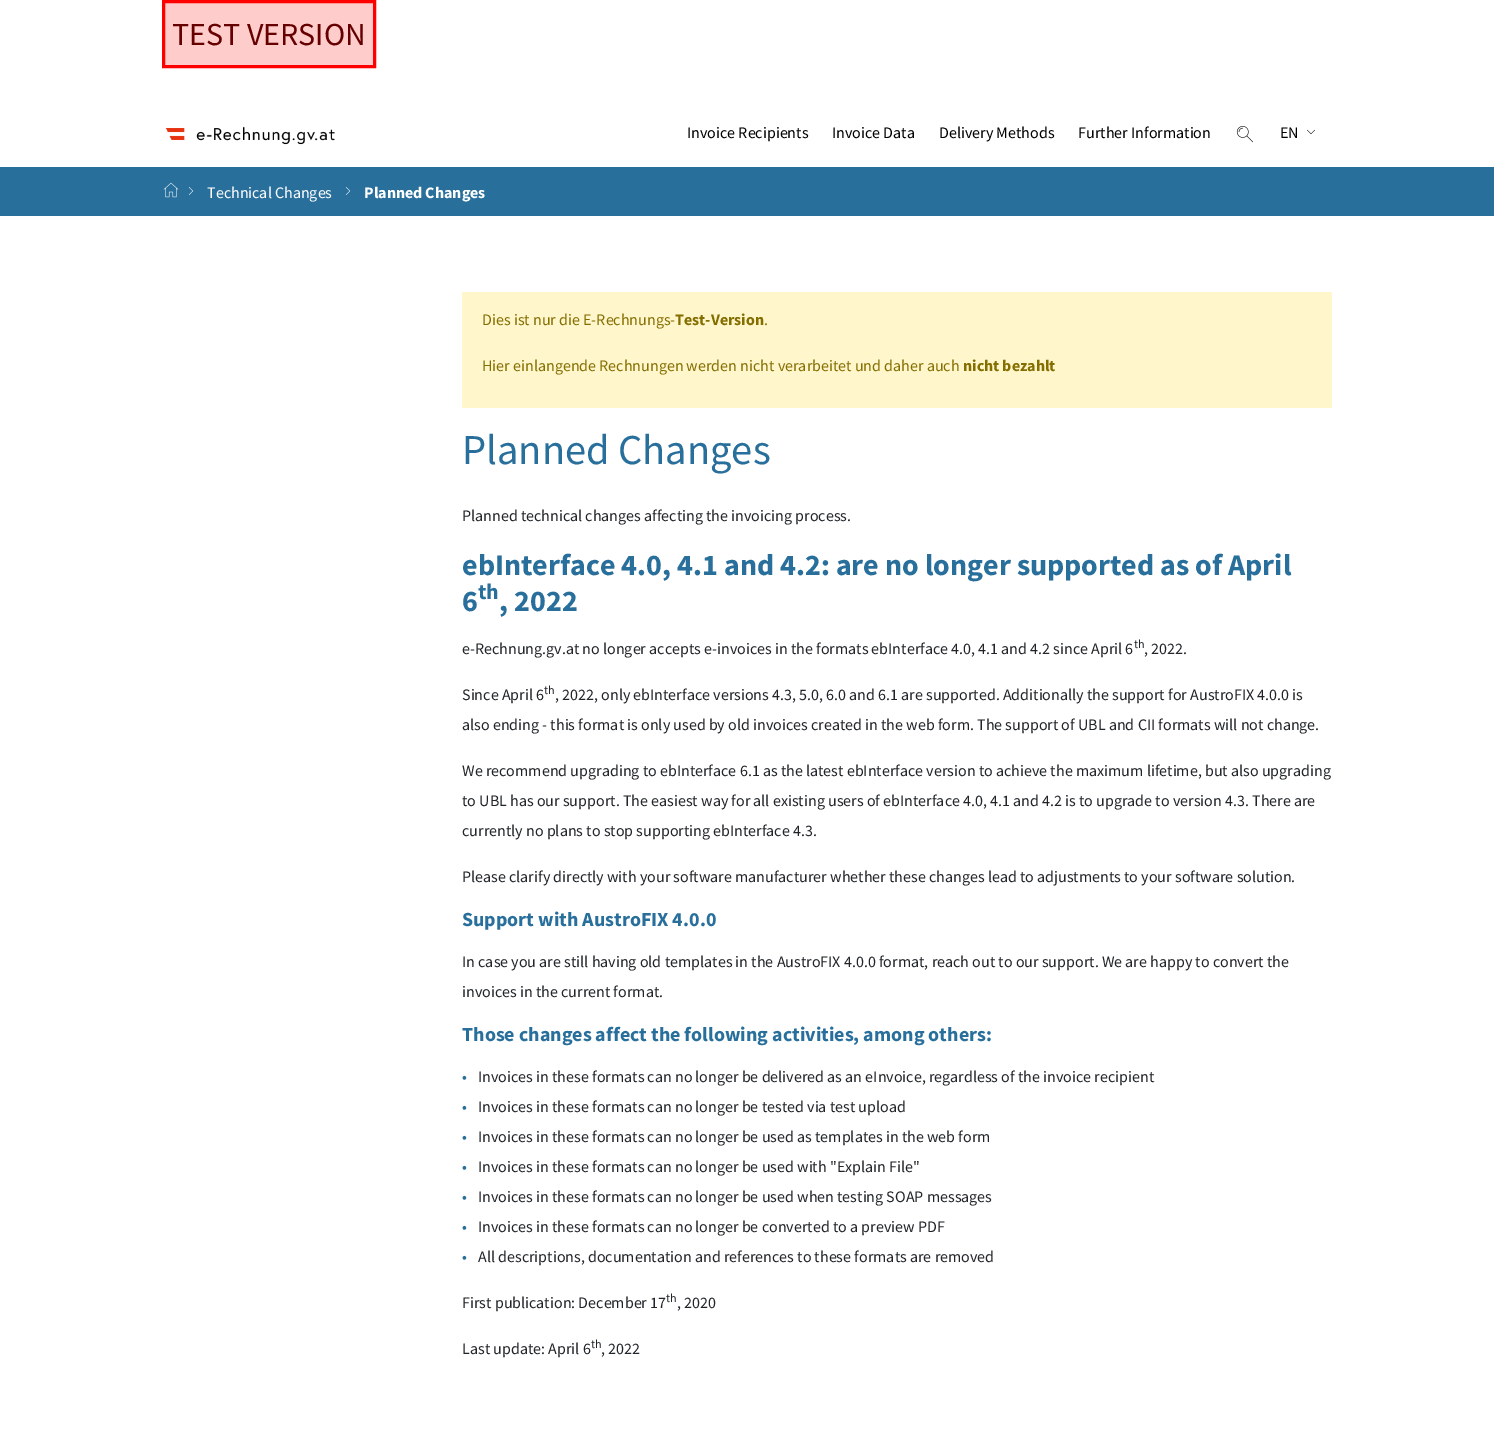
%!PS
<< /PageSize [1494 1452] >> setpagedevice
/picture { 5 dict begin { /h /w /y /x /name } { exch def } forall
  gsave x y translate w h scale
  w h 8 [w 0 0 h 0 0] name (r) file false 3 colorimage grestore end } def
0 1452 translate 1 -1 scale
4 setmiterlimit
1 setgray
0 0 1494 1452 rectfill
1 0.8 0.8 setrgbcolor
newpath 163.5 1.5 moveto 374.5 1.5 lineto 374.5 66.5 lineto 163.5 66.5 lineto closepath gsave fill grestore
1 0 0 setrgbcolor
3 setlinewidth
stroke
/SourceSansPro-Regular [32 0 0 -32 0 0] selectfont
0.4 0 0 setrgbcolor
172 45 moveto (TEST VERSION) show
(img1.rgb) 165 126 170 19 picture
/SourceSansPro-Regular [16 0 0 -16 0 0] selectfont
0 setgray
687 138 moveto (Invoice Recipients) show
832 138 moveto (Invoice Data) show
939 138 moveto (Delivery Methods) show
1078 138 moveto (Further Information) show
(img2.rgb) 1236 126 17 17 picture
1280 138 moveto (EN) show
(img3.rgb) 1307 129 8 6 picture
0.157 0.435 0.612 setrgbcolor
0 167 1494 49 rectfill
(img4.rgb) 163 182 16 16 picture
(img5.rgb) 188 187 6 8 picture
1 setgray
207 198 moveto (Technical Changes) show
(img5.rgb) 345 187 6 8 picture
/SourceSansPro-Bold [16 0 0 -16 0 0] selectfont
364 198 moveto (Planned Changes) show
1 0.965 0.8 setrgbcolor
462 292 870 116 rectfill
/SourceSansPro-Regular [16 0 0 -16 0 0] selectfont
0.522 0.431 0 setrgbcolor
482 325 moveto (Dies ist nur die E-Rechnungs-) show
/SourceSansPro-Bold [16 0 0 -16 0 0] selectfont
675 325 moveto (Test-Version) show
/SourceSansPro-Regular [16 0 0 -16 0 0] selectfont
764 325 moveto (.) show
482 371 moveto (Hier einlangende Rechnungen werden nicht verarbeitet und daher auch) show
/SourceSansPro-Bold [16 0 0 -16 0 0] selectfont
963 371 moveto (nicht bezahlt) show
/SourceSansPro-Regular [42.5 0 0 -42.5 0 0] selectfont
0.157 0.435 0.612 setrgbcolor
462 464 moveto (Planned Changes) show
/SourceSansPro-Regular [16 0 0 -16 0 0] selectfont
0.129 0.145 0.161 setrgbcolor
462 521 moveto (Planned technical changes affecting the invoicing process.) show
/SourceSansPro-Bold [30 0 0 -30 0 0] selectfont
0.157 0.435 0.612 setrgbcolor
462 575 moveto (ebInterface 4.0, 4.1 and 4.2: are no longer supported as of April) show
462 611 moveto (6) show
/SourceSansPro-Bold [22 0 0 -22 0 0] selectfont
478 599 moveto (th) show
/SourceSansPro-Bold [30 0 0 -30 0 0] selectfont
499 611 moveto (, 2022) show
/SourceSansPro-Regular [16 0 0 -16 0 0] selectfont
0.129 0.145 0.161 setrgbcolor
462 654 moveto (e-Rechnung.gv.at no longer accepts e-invoices in the formats ebInterface 4.0, 4.1 and 4.2 since April 6) show
/SourceSansPro-Regular [12 0 0 -12 0 0] selectfont
1134 648 moveto (th) show
/SourceSansPro-Regular [16 0 0 -16 0 0] selectfont
1144 654 moveto (, 2022.) show
462 700 moveto (Since April 6) show
/SourceSansPro-Regular [12 0 0 -12 0 0] selectfont
544 694 moveto (th) show
/SourceSansPro-Regular [16 0 0 -16 0 0] selectfont
555 700 moveto (, 2022, only ebInterface versions 4.3, 5.0, 6.0 and 6.1 are supported. Additionally the support for AustroFIX 4.0.0 is) show
462 730 moveto (also ending - this format is only used by old invoices created in the web form. The support of UBL and CII formats will not change.) show
462 776 moveto (We recommend upgrading to ebInterface 6.1 as the latest ebInterface version to achieve the maximum lifetime, but also upgrading) show
462 806 moveto (to UBL has our support. The easiest way for all existing users of ebInterface 4.0, 4.1 and 4.2 is to upgrade to version 4.3. There are) show
462 836 moveto (currently no plans to stop supporting ebInterface 4.3.) show
462 882 moveto (Please clarify directly with your software manufacturer whether these changes lead to adjustments to your software solution.) show
/SourceSansPro-Bold [20 0 0 -20 0 0] selectfont
0.157 0.435 0.612 setrgbcolor
462 926 moveto (Support with AustroFIX 4.0.0) show
/SourceSansPro-Regular [16 0 0 -16 0 0] selectfont
0.129 0.145 0.161 setrgbcolor
462 967 moveto (In case you are still having old templates in the AustroFIX 4.0.0 format, reach out to our support. We are happy to convert the) show
462 997 moveto (invoices in the current format.) show
/SourceSansPro-Bold [20 0 0 -20 0 0] selectfont
0.157 0.435 0.612 setrgbcolor
462 1041 moveto (Those changes affect the following activities, among others:) show
/SourceSansPro-Regular [16 0 0 -16 0 0] selectfont
462 1082 moveto (•) show
0.129 0.145 0.161 setrgbcolor
478 1082 moveto (Invoices in these formats can no longer be delivered as an eInvoice, regardless of the invoice recipient) show
0.157 0.435 0.612 setrgbcolor
462 1112 moveto (•) show
0.129 0.145 0.161 setrgbcolor
478 1112 moveto (Invoices in these formats can no longer be tested via test upload) show
0.157 0.435 0.612 setrgbcolor
462 1142 moveto (•) show
0.129 0.145 0.161 setrgbcolor
478 1142 moveto (Invoices in these formats can no longer be used as templates in the web form) show
0.157 0.435 0.612 setrgbcolor
462 1172 moveto (•) show
0.129 0.145 0.161 setrgbcolor
478 1172 moveto (Invoices in these formats can no longer be used with "Explain File") show
0.157 0.435 0.612 setrgbcolor
462 1202 moveto (•) show
0.129 0.145 0.161 setrgbcolor
478 1202 moveto (Invoices in these formats can no longer be used when testing SOAP messages) show
0.157 0.435 0.612 setrgbcolor
462 1232 moveto (•) show
0.129 0.145 0.161 setrgbcolor
478 1232 moveto (Invoices in these formats can no longer be converted to a preview PDF) show
0.157 0.435 0.612 setrgbcolor
462 1262 moveto (•) show
0.129 0.145 0.161 setrgbcolor
478 1262 moveto (All descriptions, documentation and references to these formats are removed) show
462 1308 moveto (First publication: December 17) show
/SourceSansPro-Regular [12 0 0 -12 0 0] selectfont
666 1302 moveto (th) show
/SourceSansPro-Regular [16 0 0 -16 0 0] selectfont
677 1308 moveto (, 2020) show
462 1354 moveto (Last update: April 6) show
/SourceSansPro-Regular [12 0 0 -12 0 0] selectfont
591 1348 moveto (th) show
/SourceSansPro-Regular [16 0 0 -16 0 0] selectfont
601 1354 moveto (, 2022) show
showpage
